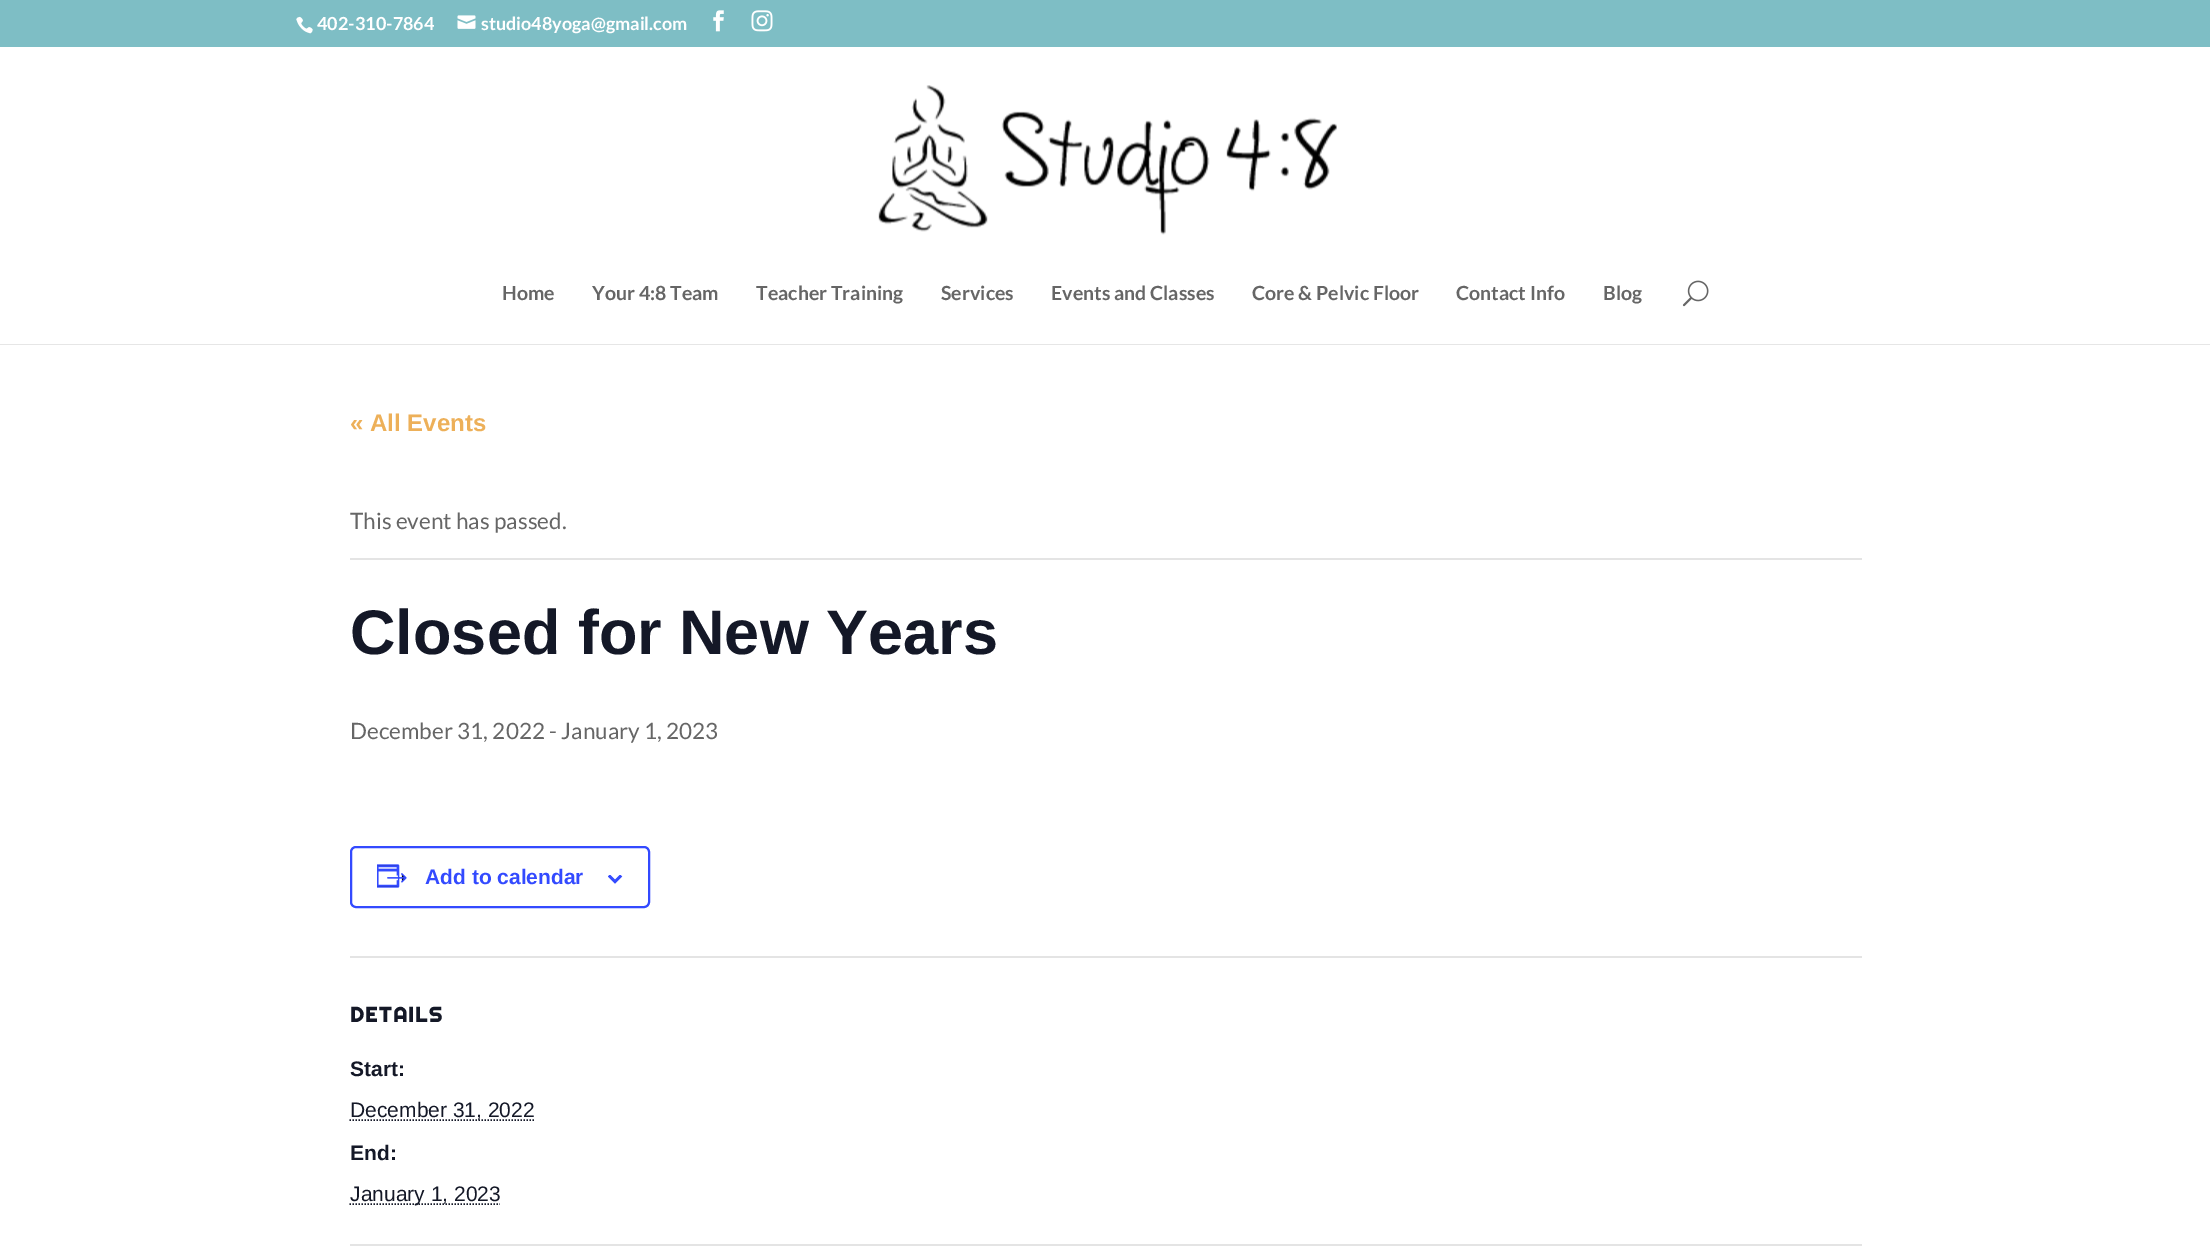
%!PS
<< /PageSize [2210 1253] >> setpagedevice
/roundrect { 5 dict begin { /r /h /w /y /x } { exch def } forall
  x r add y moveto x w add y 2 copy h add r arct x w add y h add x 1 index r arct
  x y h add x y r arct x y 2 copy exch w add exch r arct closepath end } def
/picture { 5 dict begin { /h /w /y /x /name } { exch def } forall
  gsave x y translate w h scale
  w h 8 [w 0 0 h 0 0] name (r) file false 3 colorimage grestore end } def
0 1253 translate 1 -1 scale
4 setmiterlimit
1 setgray
0 0 2210 1253 rectfill
0.494 0.745 0.773 setrgbcolor
0 0 2210 47 rectfill
(img1.rgb) 296 16 17 18 picture
/Lato-Bold [18 0 0 -18 0 0] selectfont
1 setgray
317 30 moveto (402-310-7864) show
(img2.rgb) 457 15 19 14 picture
481 30 moveto (studio48yoga@gmail.com) show
(img3.rgb) 713 10 11 22 picture
(img4.rgb) 751 10 22 22 picture
0.902 setgray
0 344 2210 1 rectfill
(img5.rgb) 878 85 459 150 picture
/Lato-Bold [19.5 0 0 -19.5 0 0] selectfont
0.4 setgray
502 300 moveto (Home) show
592 300 moveto (Your 4:8 Team) show
756 300 moveto (Teacher Training) show
941 300 moveto (Services) show
1051 300 moveto (Events and Classes) show
1252 300 moveto (Core & Pelvic Floor) show
1456 300 moveto (Contact Info) show
1603 300 moveto (Blog) show
(img6.rgb) 1682 280 27 27 picture
/LiberationSans-Bold [24 0 0 -24 0 0] selectfont
0.929 0.69 0.349 setrgbcolor
350 431 moveto (« All Events) show
0.894 setgray
350 558 1512 2 rectfill
/Lato-Regular [22.5 0 0 -22.5 0 0] selectfont
0.4 setgray
350 529 moveto (This event has passed.) show
/LiberationSans-Bold [63 0 0 -63 0 0] selectfont
0.078 0.094 0.153 setrgbcolor
350 654 moveto (Closed for New Years) show
/Lato-Regular [22.5 0 0 -22.5 0 0] selectfont
0.4 setgray
350 739 moveto (December 31, 2022 - January 1, 2023) show
0.2 0.29 1 setrgbcolor
2 setlinewidth
351 847 298 60 5 roundrect stroke
(img7.rgb) 377 864 30 24 picture
/LiberationSans-Bold [21 0 0 -21 0 0] selectfont
425 884 moveto (Add to calendar) show
(img8.rgb) 608 875 15 9 picture
0.894 setgray
350 956 1512 2 rectfill
/Righteous-Bold [21 0 0 -21 0 0] selectfont
0.078 0.094 0.153 setrgbcolor
350 1022 moveto 1.5 0 (DETAILS) ashow
/LiberationSans-Bold [21 0 0 -21 0 0] selectfont
350 1076 moveto (Start:) show
1.5 setlinewidth
[1.5 1.5] 0 setdash
newpath 349.5 1120 moveto 534 1120 lineto stroke
/LiberationSans-Regular [21 0 0 -21 0 0] selectfont
350 1117 moveto (December 31, 2022) show
/LiberationSans-Bold [21 0 0 -21 0 0] selectfont
350 1160 moveto (End:) show
newpath 349.5 1204 moveto 500 1204 lineto stroke
/LiberationSans-Regular [21 0 0 -21 0 0] selectfont
350 1201 moveto (January 1, 2023) show
0.894 setgray
350 1244 1512 2 rectfill
showpage
